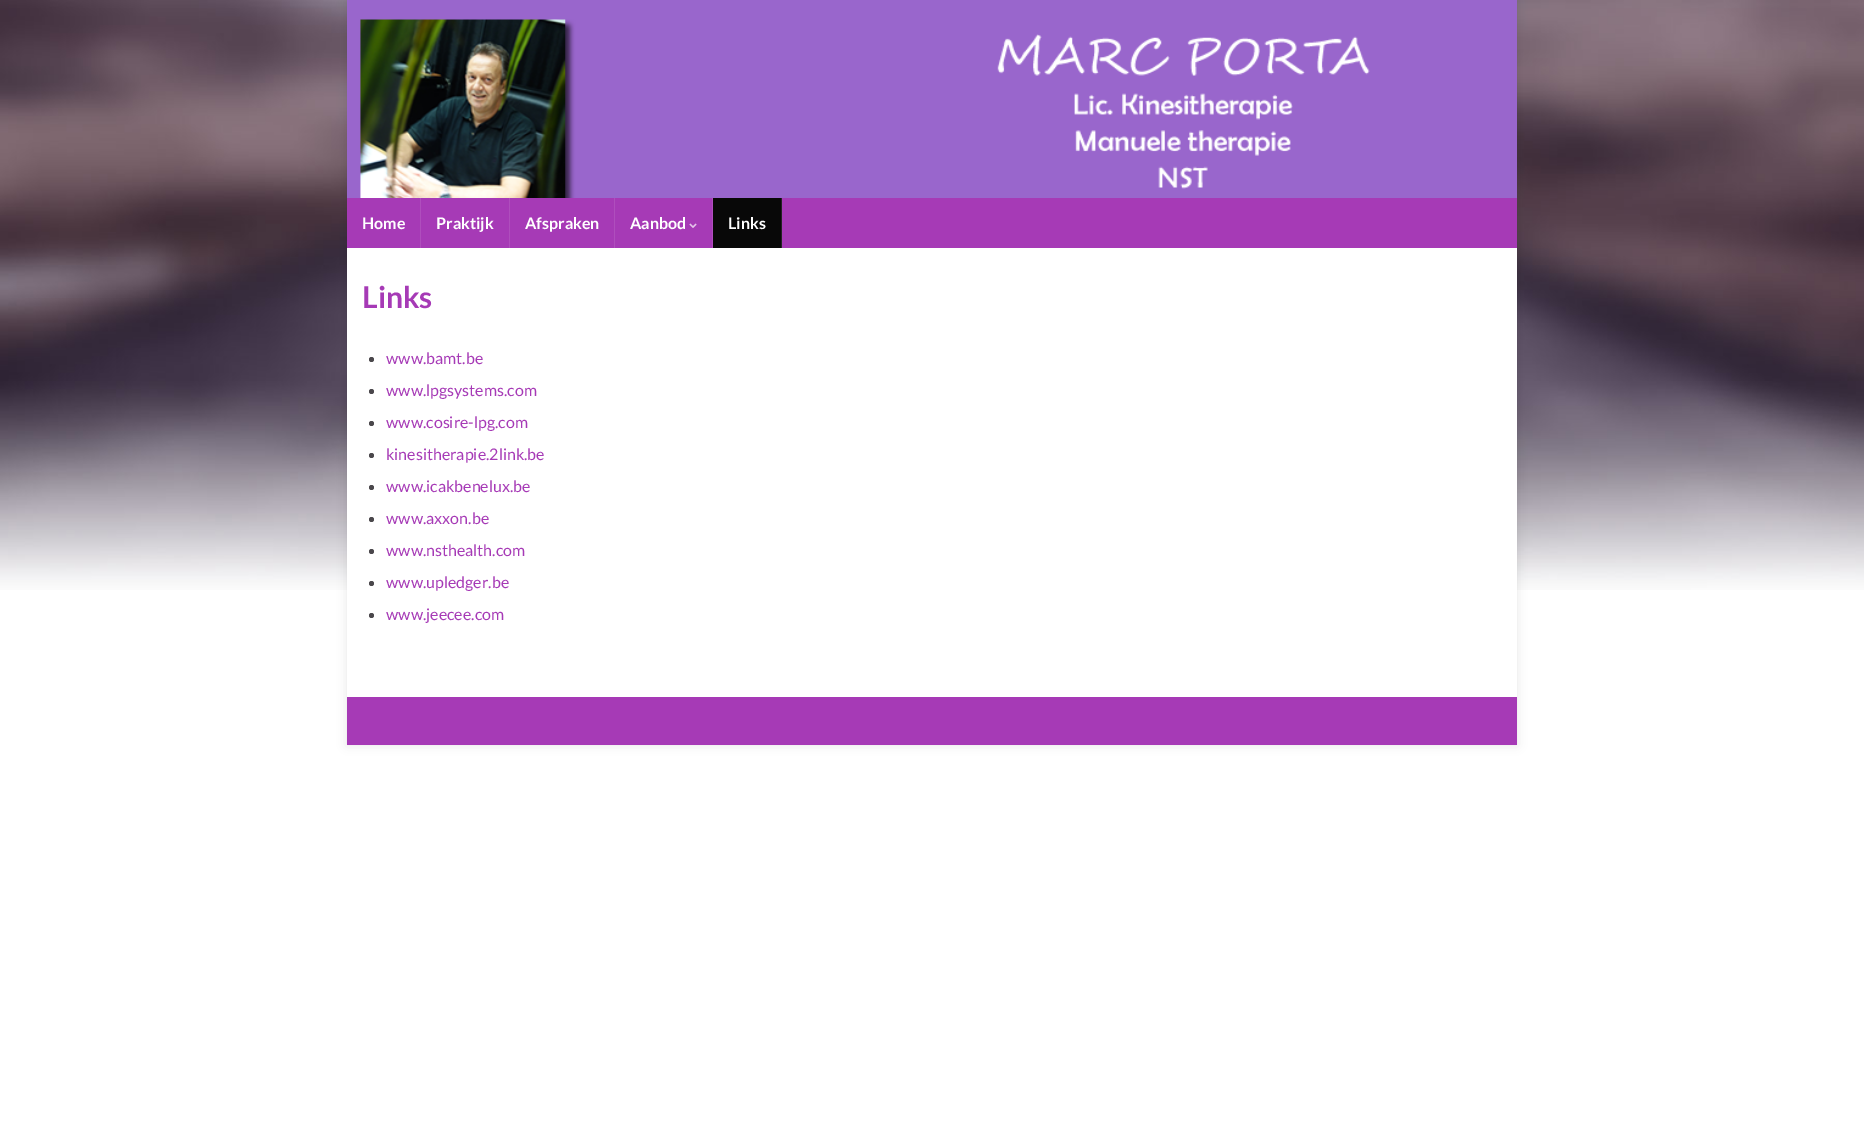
%!PS
<< /PageSize [1864 1142] /PageUsesTransparency true >> setpagedevice
/alpha { dup .setfillconstantalpha .setstrokeconstantalpha } def
/roundrect { 5 dict begin { /r /h /w /y /x } { exch def } forall
  x r add y moveto x w add y 2 copy h add r arct x w add y h add x 1 index r arct
  x y h add x y r arct x y 2 copy exch w add exch r arct closepath end } def
/shadow { 12 dict begin { /a /b /q /h /w /y /x } { exch def } forall gsave /was 0 def
  9 -2 -9 { dup b mul 4 div /e exch def 1 sub .425 mul 2.718 exch exp 1 add a .99 .min exch div /now exch def
    1 1 now sub 1 was sub div sub alpha /was now def
    w h .min e 2 mul add 0 gt { x e sub y e sub w e 2 mul add h e 2 mul add
      q e add b .6 mul add w h .min 2 div e add .min 0 .max roundrect fill } if } for grestore end } def
/picture { 5 dict begin { /h /w /y /x /name } { exch def } forall
  gsave x y translate w h scale
  w h 8 [w 0 0 h 0 0] name (r) file false 3 colorimage grestore end } def
0 .pushpdf14devicefilter
0 1142 translate 1 -1 scale
4 setmiterlimit
1 setgray
0 0 1864 1142 rectfill
(img1.rgb) 0 0 1864 590 picture
0 setgray
347 0 1170 745 0 5 0.1 shadow
(img2.rgb) 347 0 1170 198 picture
0.651 0.227 0.714 setrgbcolor
347 198 1170 50 rectfill
0.686 0.306 0.741 setrgbcolor
420 198 1 50 rectfill
/Lato-Bold [16 0 0 -16 0 0] selectfont
1 setgray
362 229 moveto (Home) show
0.686 0.306 0.741 setrgbcolor
509 198 1 50 rectfill
1 setgray
436 229 moveto (Praktijk) show
0.686 0.306 0.741 setrgbcolor
614 198 1 50 rectfill
1 setgray
525 229 moveto (Afspraken) show
0.686 0.306 0.741 setrgbcolor
712 198 1 50 rectfill
1 setgray
630 229 moveto (Aanbod) show
(img3.rgb) 689 223 8 5 picture
0.137 setgray
781 198 1 50 rectfill
0.031 setgray
713 198 68 50 rectfill
1 setgray
728 229 moveto (Links) show
347 248 1170 449 rectfill
/Lato-Bold [30 0 0 -30 0 0] selectfont
0.651 0.227 0.714 setrgbcolor
362 308 moveto (Links) show
0.29 0.278 0.294 setrgbcolor
newpath 371.5 359.5 2.5 0 360 arc closepath fill
/Lato-Regular [16 0 0 -16 0 0] selectfont
0.651 0.227 0.714 setrgbcolor
386 364 moveto (www.bamt.be) show
0.29 0.278 0.294 setrgbcolor
newpath 371.5 391.5 2.5 0 360 arc closepath fill
0.651 0.227 0.714 setrgbcolor
386 396 moveto (www.lpgsystems.com) show
0.29 0.278 0.294 setrgbcolor
newpath 371.5 423.5 2.5 0 360 arc closepath fill
0.651 0.227 0.714 setrgbcolor
386 428 moveto (www.cosire-lpg.com) show
0.29 0.278 0.294 setrgbcolor
newpath 371.5 455.5 2.5 0 360 arc closepath fill
0.651 0.227 0.714 setrgbcolor
386 460 moveto (kinesitherapie.2link.be) show
0.29 0.278 0.294 setrgbcolor
newpath 371.5 487.5 2.5 0 360 arc closepath fill
0.651 0.227 0.714 setrgbcolor
386 492 moveto (www.icakbenelux.be) show
0.29 0.278 0.294 setrgbcolor
newpath 371.5 519.5 2.5 0 360 arc closepath fill
0.651 0.227 0.714 setrgbcolor
386 524 moveto (www.axxon.be) show
0.29 0.278 0.294 setrgbcolor
newpath 371.5 551.5 2.5 0 360 arc closepath fill
0.651 0.227 0.714 setrgbcolor
386 556 moveto (www.nsthealth.com) show
0.29 0.278 0.294 setrgbcolor
newpath 371.5 583.5 2.5 0 360 arc closepath fill
0.651 0.227 0.714 setrgbcolor
386 588 moveto (www.upledger.be) show
0.29 0.278 0.294 setrgbcolor
newpath 371.5 615.5 2.5 0 360 arc closepath fill
0.651 0.227 0.714 setrgbcolor
386 620 moveto (www.jeecee.com) show
347 697 1170 48 rectfill
.poppdf14devicefilter showpage
